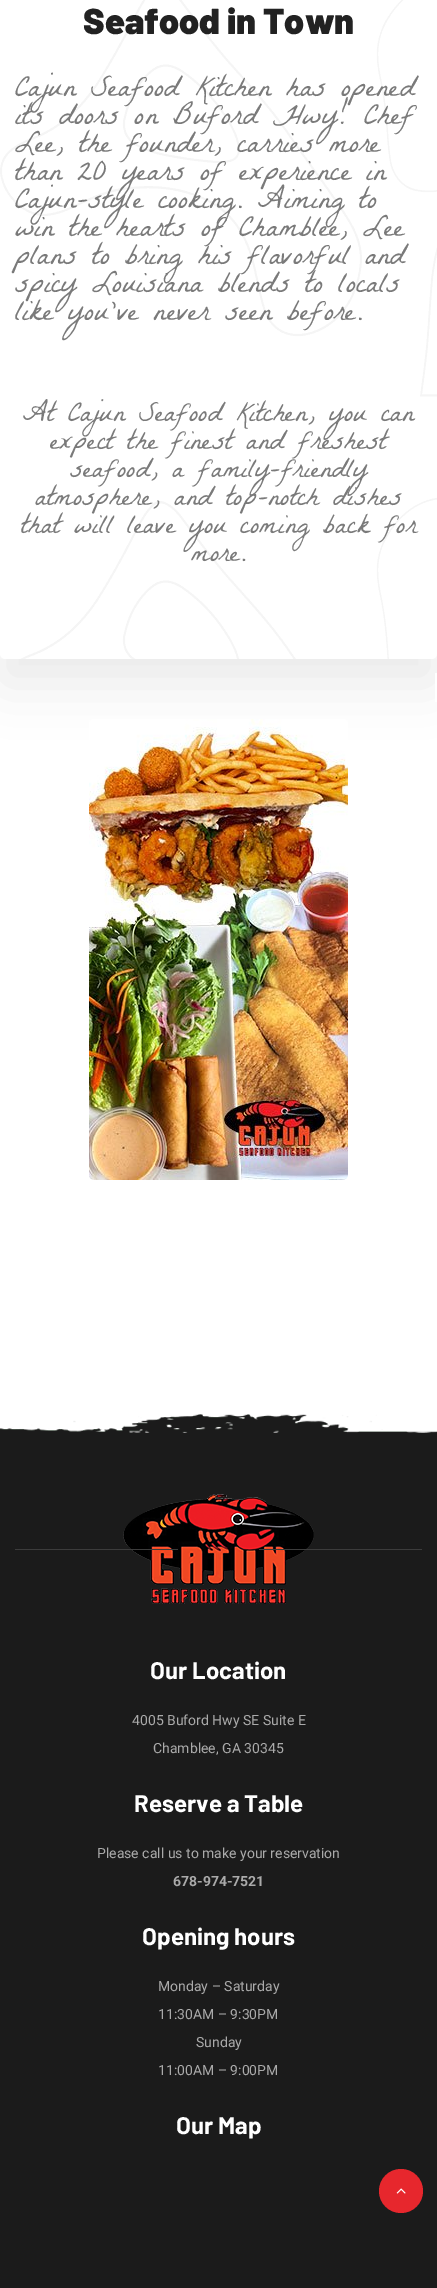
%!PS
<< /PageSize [437 2288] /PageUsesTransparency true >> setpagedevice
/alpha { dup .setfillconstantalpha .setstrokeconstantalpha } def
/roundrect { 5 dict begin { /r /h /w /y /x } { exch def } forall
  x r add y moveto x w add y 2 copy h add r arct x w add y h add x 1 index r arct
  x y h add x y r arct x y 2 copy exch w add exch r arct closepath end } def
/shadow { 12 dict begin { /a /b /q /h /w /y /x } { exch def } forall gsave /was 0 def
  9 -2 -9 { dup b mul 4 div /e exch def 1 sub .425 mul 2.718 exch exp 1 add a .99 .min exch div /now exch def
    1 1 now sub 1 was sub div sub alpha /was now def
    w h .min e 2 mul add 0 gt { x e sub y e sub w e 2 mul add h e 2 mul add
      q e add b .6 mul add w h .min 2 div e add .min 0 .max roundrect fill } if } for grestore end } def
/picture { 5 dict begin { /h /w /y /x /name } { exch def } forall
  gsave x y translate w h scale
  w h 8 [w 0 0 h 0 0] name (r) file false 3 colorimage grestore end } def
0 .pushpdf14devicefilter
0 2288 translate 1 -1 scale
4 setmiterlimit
1 setgray
0 0 437 2288 rectfill
gsave
newpath 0 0 moveto 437 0 lineto 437 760 lineto 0 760 lineto closepath 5 -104 moveto 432 -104 lineto 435 -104 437 -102 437 -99 curveto 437 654 lineto 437 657 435 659 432 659 curveto 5 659 lineto 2 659 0 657 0 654 curveto 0 -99 lineto 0 -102 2 -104 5 -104 curveto closepath eoclip newpath
0 setgray
0 -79 437 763 5 25 0.08 shadow
grestore
(img1.rgb) 0 0 437 659 picture
/Barlow-Black [36 0 0 -36 0 0] selectfont
0.133 setgray
83 34 moveto (Seafood in Town) show
/LaBelleAurore-Regular [30 0 0 -30 0 0] selectfont
0.478 setgray
15 96 moveto (Cajun Seafood Kitchen has opened) show
15 124 moveto (its doors on Buford Hwy! Chef) show
15 152 moveto (Lee, the founder, carries more) show
15 180 moveto (than 20 years of experience in) show
15 208 moveto (Cajun-style cooking. Aiming to) show
15 236 moveto (win the hearts of Chamblee, Lee) show
15 264 moveto (plans to bring his flavorful and) show
15 292 moveto (spicy Louisiana blends to locals) show
15 320 moveto (like you’ve never seen before.) show
/LaBelleAurore-Regular [28 0 0 -28 0 0] selectfont
23 421 moveto (At Cajun Seafood Kitchen, you can) show
50 449 moveto (expect the finest and freshest) show
70 477 moveto (seafood, a family-friendly) show
35 505 moveto (atmosphere, and top-notch dishes) show
21 533 moveto (that will leave you coming back for) show
191 561 moveto (more.) show
(img2.rgb) 89 719 259 461 picture
1 setgray
435 673 2 29 rectfill
0.106 setgray
0 1414 437 874 rectfill
(img3.rgb) 0 1414 437 19 picture
(img4.rgb) 123 1494 191 110 picture
0.235 setgray
15 1549 163 1 rectfill
259 1549 163 1 rectfill
/Barlow-Bold [24 0 0 -24 0 0] selectfont
1 setgray
150 1679 moveto (Our Location) show
/Roboto-Regular [14 0 0 -14 0 0] selectfont
0.667 setgray
132 1725 moveto (4005 Buford Hwy SE Suite E) show
153 1753 moveto (Chamblee, GA 30345) show
/Barlow-Bold [24 0 0 -24 0 0] selectfont
1 setgray
134 1812 moveto (Reserve a Table) show
/Roboto-Regular [14 0 0 -14 0 0] selectfont
0.667 setgray
97 1858 moveto (Please call us to make your reservation) show
/Roboto-Bold [14 0 0 -14 0 0] selectfont
173 1886 moveto (678-974-7521) show
/Barlow-Bold [24 0 0 -24 0 0] selectfont
1 setgray
142 1945 moveto (Opening hours) show
/Roboto-Regular [14 0 0 -14 0 0] selectfont
0.667 setgray
158 1991 moveto (Monday – Saturday) show
158 2019 moveto (11:30AM – 9:30PM) show
196 2047 moveto (Sunday) show
158 2075 moveto (11:00AM – 9:00PM) show
/Barlow-Bold [24 0 0 -24 0 0] selectfont
1 setgray
176 2134 moveto (Our Map) show
0.906 0.153 0.176 setrgbcolor
newpath 401 2191 22 0 360 arc closepath fill
(img5.rgb) 396 2188 10 6 picture
.poppdf14devicefilter showpage
